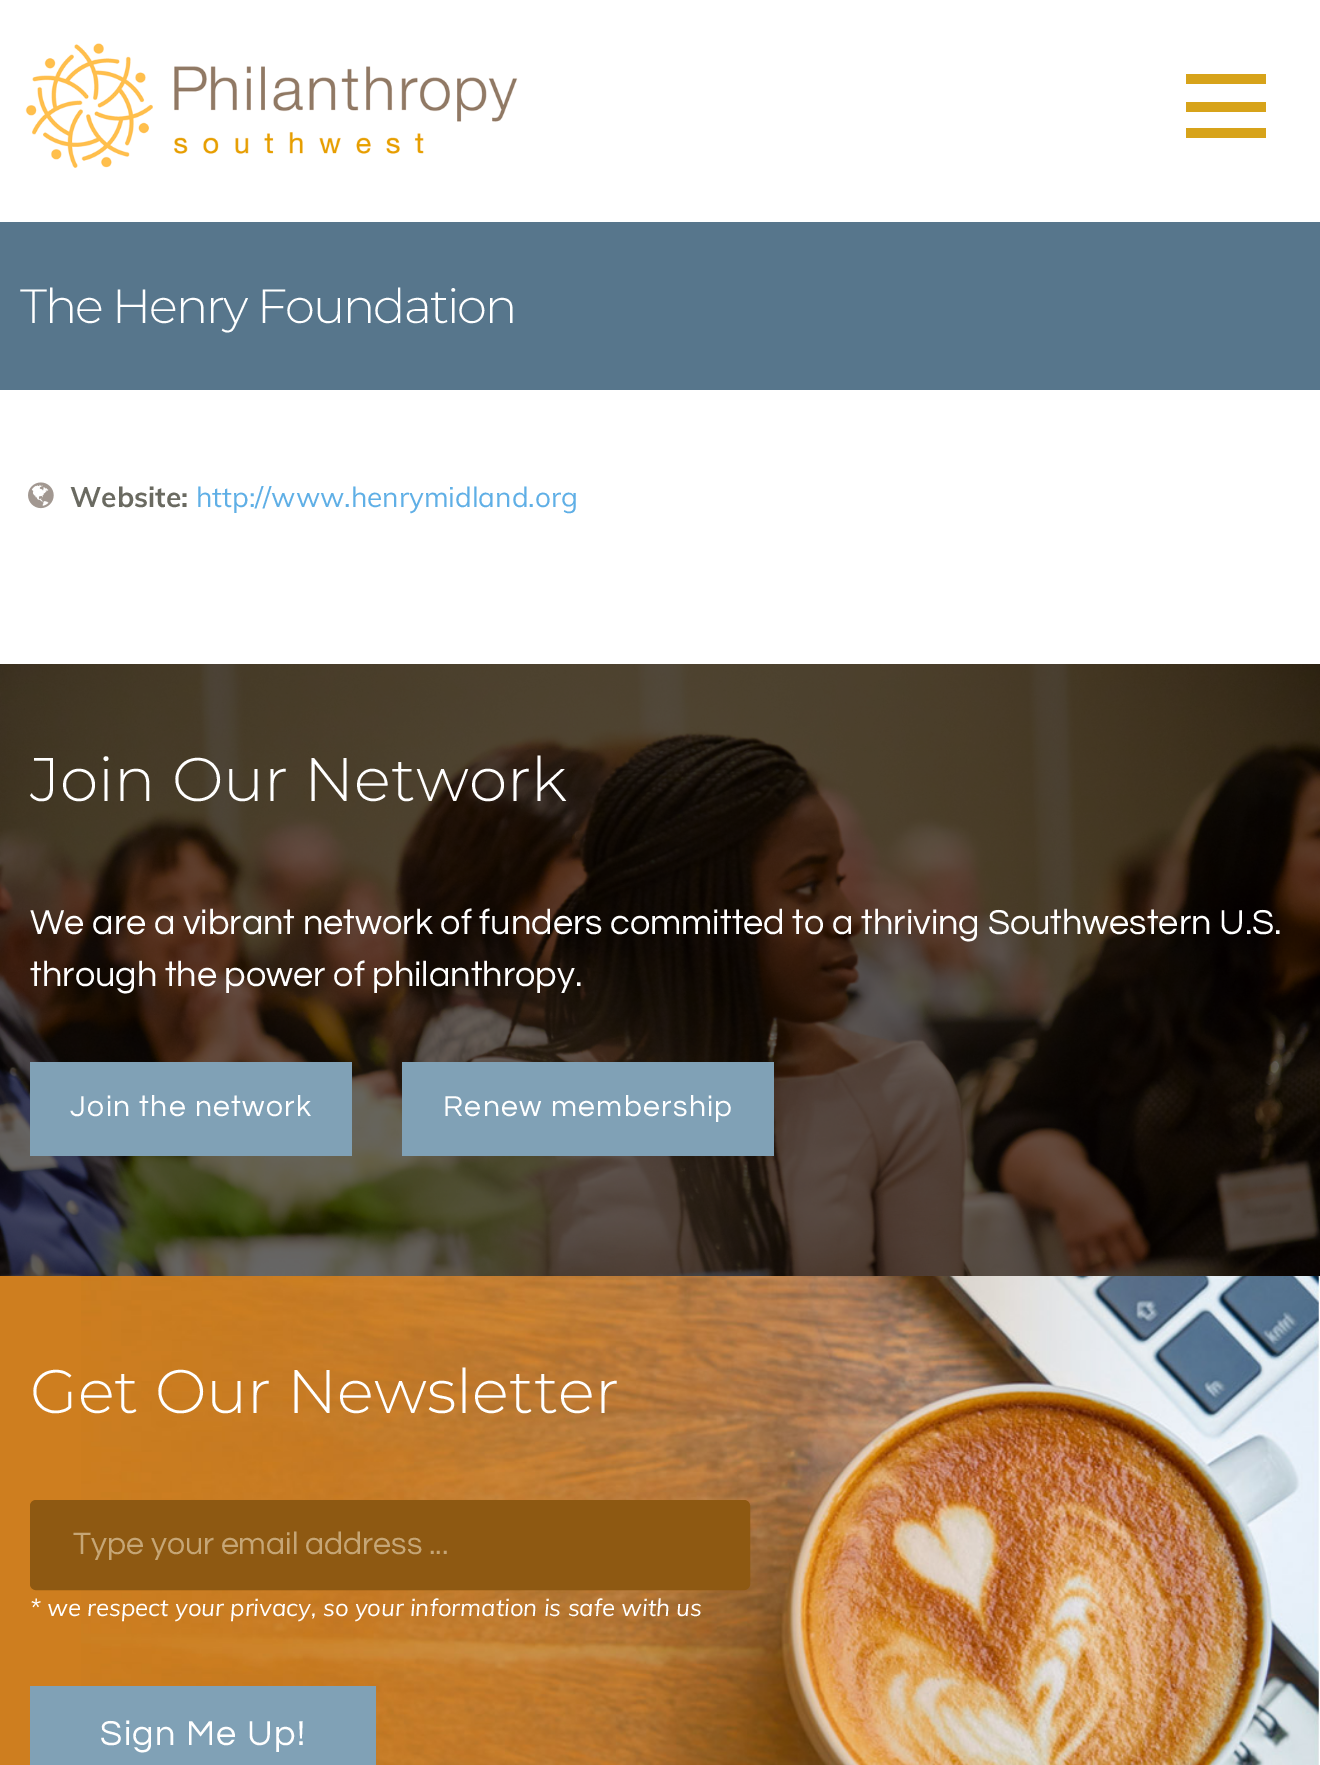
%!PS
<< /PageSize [1320 1765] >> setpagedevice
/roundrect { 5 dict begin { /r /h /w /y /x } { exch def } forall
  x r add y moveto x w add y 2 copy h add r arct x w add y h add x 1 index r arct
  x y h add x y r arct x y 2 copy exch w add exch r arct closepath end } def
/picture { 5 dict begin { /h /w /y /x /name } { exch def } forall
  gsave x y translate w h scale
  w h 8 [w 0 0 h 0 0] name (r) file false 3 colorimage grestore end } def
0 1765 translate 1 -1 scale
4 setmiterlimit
1 setgray
0 0 1320 1765 rectfill
(img1.rgb) 25 43 493 125 picture
0.843 0.639 0.102 setrgbcolor
1186 74 80 10 rectfill
1186 102 80 10 rectfill
1186 128 80 10 rectfill
0.341 0.463 0.549 setrgbcolor
0 222 1320 168 rectfill
/Montserrat-Light [48 0 0 -48 0 0] selectfont
1 setgray
20 323 moveto -2 0 (The Henry Foundation) ashow
(img2.rgb) 28 482 26 27 picture
/Muli-Bold [28 0 0 -28 0 0] selectfont
0.416 0.416 0.38 setrgbcolor
70 507 moveto (Website:) show
/Muli-Regular [28 0 0 -28 0 0] selectfont
0.373 0.686 0.902 setrgbcolor
196 507 moveto (http://www.henrymidland.org) show
(img3.rgb) 0 664 1320 612 picture
/Montserrat-Light [61.5 0 0 -61.5 0 0] selectfont
1 setgray
30 801 moveto (Join Our Network) show
/Questrial-Regular [36 0 0 -36 0 0] selectfont
30 934 moveto (We are a vibrant network of funders committed to a thriving Southwestern U.S.) show
30 986 moveto (through the power of philanthropy.) show
0.502 0.631 0.714 setrgbcolor
30 1062 322 94 rectfill
/Questrial-Regular [30 0 0 -30 0 0] selectfont
1 setgray
70 1116 moveto 1.4 0 (Join the network) ashow
0.502 0.631 0.714 setrgbcolor
402 1062 372 94 rectfill
1 setgray
443 1116 moveto 1.4 0 (Renew membership) ashow
0.808 0.494 0.122 setrgbcolor
0 1276 81 489 rectfill
(img4.rgb) 81 1276 1239 489 picture
/Montserrat-Light [61.5 0 0 -61.5 0 0] selectfont
1 setgray
30 1413 moveto (Get Our Newsletter) show
0.557 0.349 0.071 setrgbcolor
31 1501 718 88 5 roundrect gsave fill grestore
2 setlinewidth
stroke
gsave
60 1528 660 32 rectclip
/Questrial-Regular [32 0 0 -32 0 0] selectfont
0.776 0.651 0.463 setrgbcolor
73 1554 moveto (Type your email address ...) show
grestore
/Muli-Italic [24 0 0 -24 0 0] selectfont
1 setgray
30 1616 moveto (* we respect your privacy, so your information is safe with us) show
0.502 0.631 0.714 setrgbcolor
30 1686 346 79 rectfill
/Questrial-Regular [36 0 0 -36 0 0] selectfont
1 setgray
100 1745 moveto 1.4 0 (Sign Me Up!) ashow
showpage
